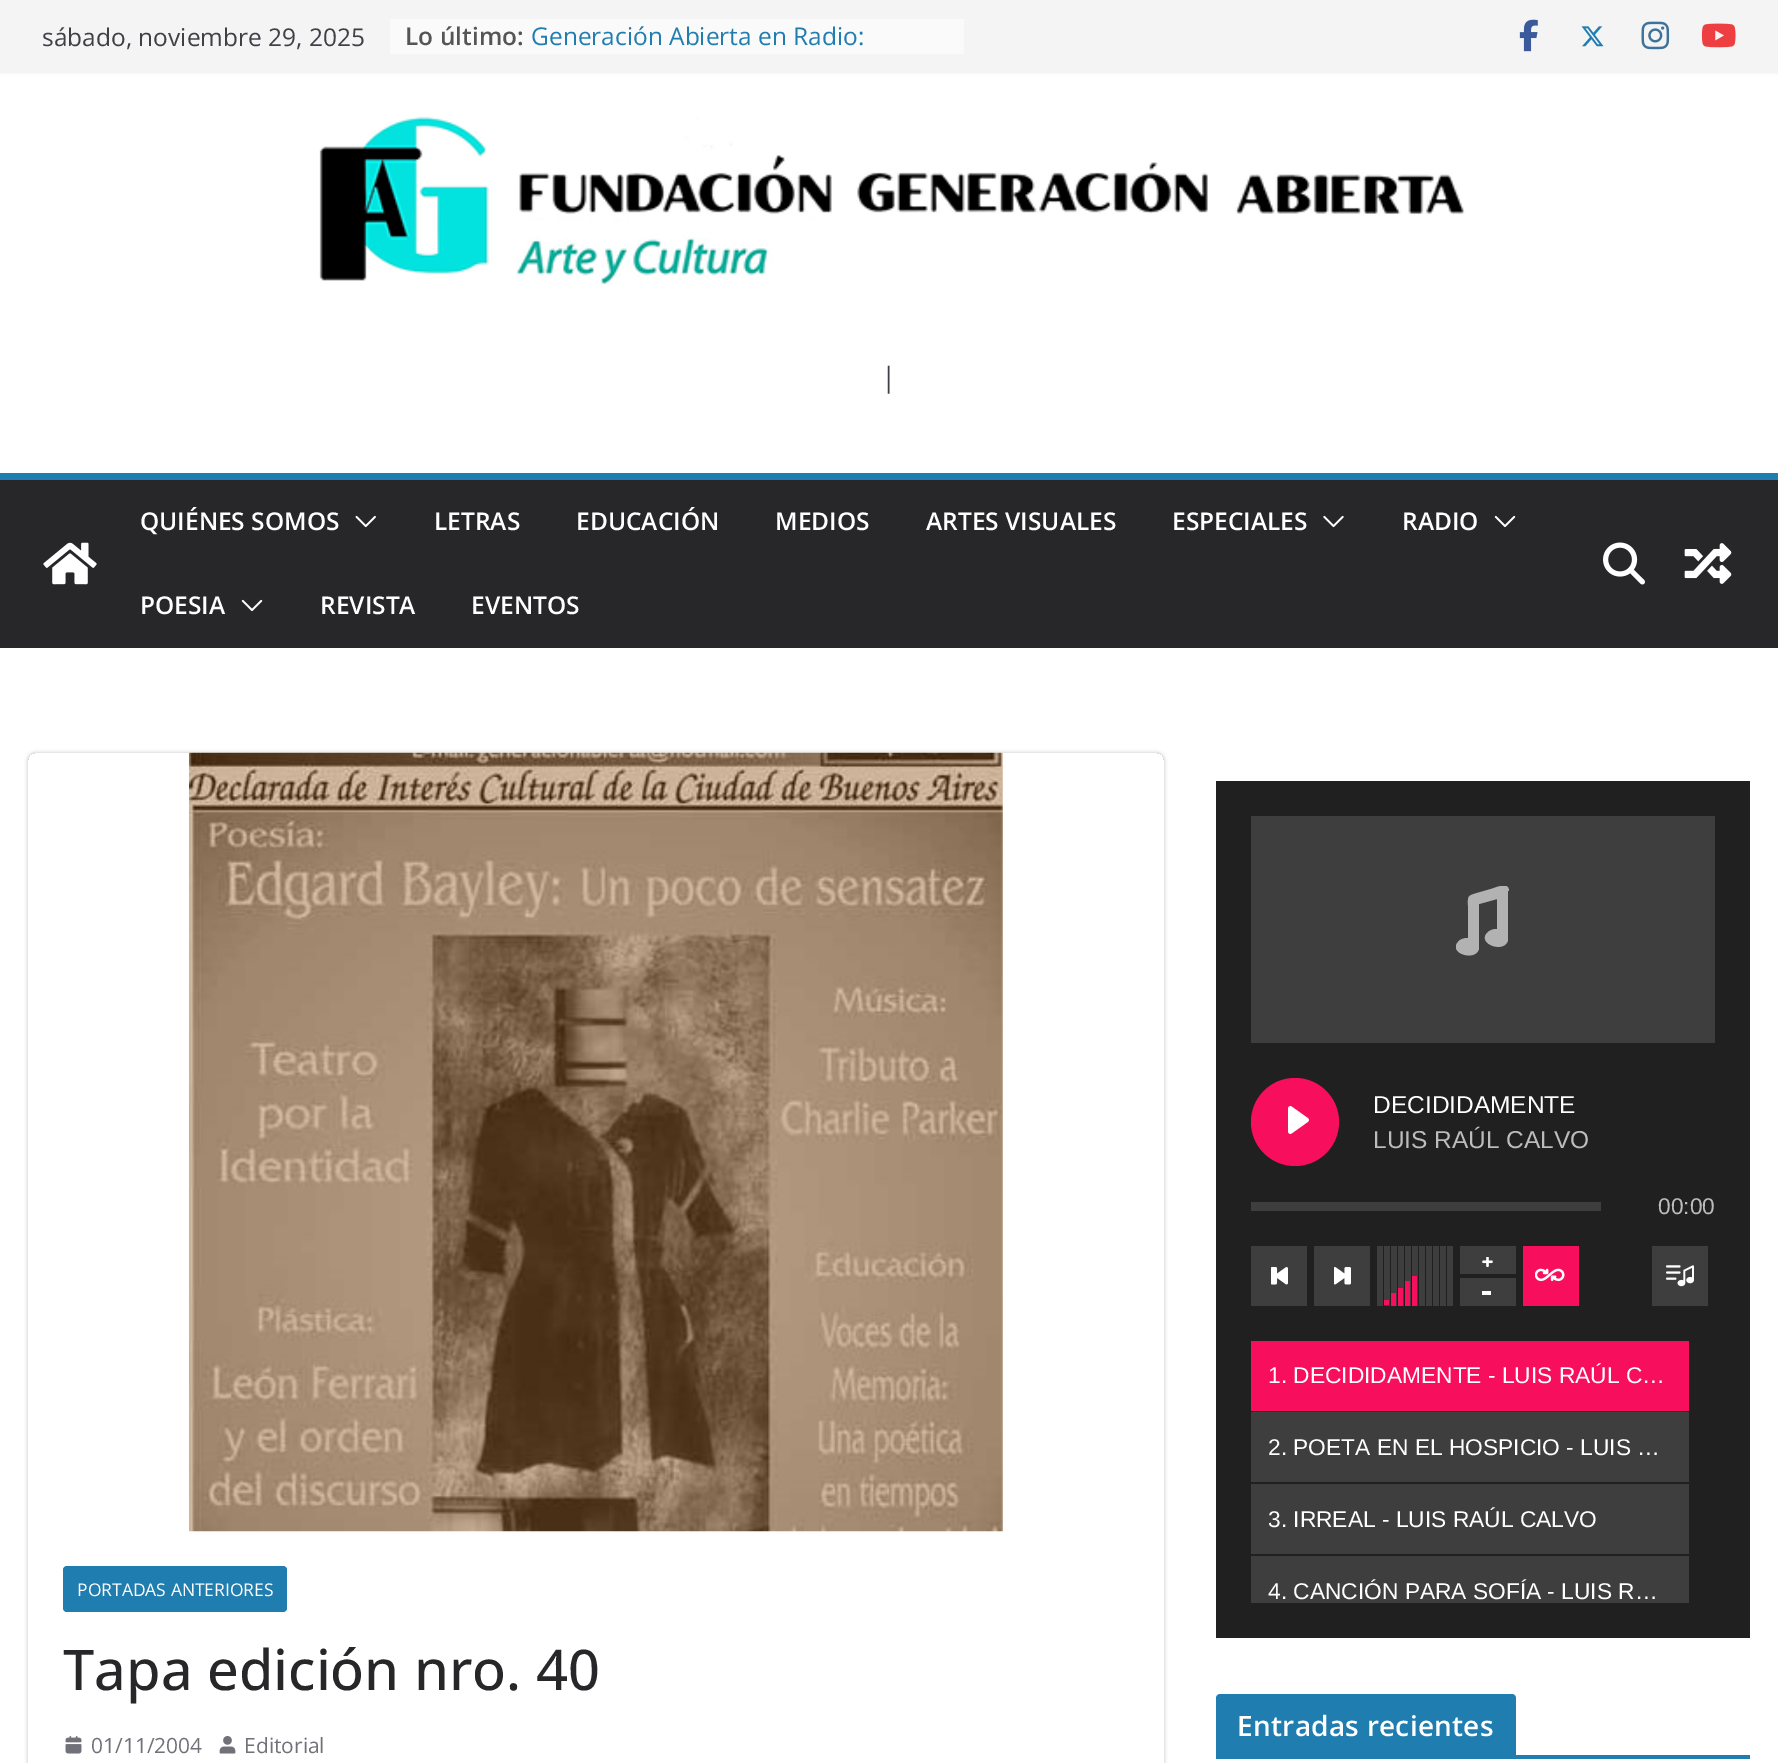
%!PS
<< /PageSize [1778 1763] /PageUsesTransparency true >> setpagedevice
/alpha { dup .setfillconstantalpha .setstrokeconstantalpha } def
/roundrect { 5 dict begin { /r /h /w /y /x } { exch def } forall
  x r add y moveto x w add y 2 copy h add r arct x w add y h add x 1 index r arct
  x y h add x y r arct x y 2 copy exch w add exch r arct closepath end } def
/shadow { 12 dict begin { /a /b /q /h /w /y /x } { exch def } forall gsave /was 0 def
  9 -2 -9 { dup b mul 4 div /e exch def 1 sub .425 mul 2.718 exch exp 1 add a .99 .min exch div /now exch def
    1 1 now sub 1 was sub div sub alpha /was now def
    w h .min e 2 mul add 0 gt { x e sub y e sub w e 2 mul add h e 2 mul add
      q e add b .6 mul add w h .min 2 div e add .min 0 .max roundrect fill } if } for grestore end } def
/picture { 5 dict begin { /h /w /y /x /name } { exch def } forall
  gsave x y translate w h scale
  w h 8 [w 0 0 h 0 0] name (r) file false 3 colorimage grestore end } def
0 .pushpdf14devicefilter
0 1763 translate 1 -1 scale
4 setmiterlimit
1 setgray
0 0 1778 1763 rectfill
0 setgray
0 0 1778 72 0 2 0.1 shadow
0.957 0.957 0.961 setrgbcolor
0 0 1778 72 rectfill
/OpenSans-Regular [24.5 0 0 -24.5 0 0] selectfont
0.247 0.247 0.275 setrgbcolor
42 46 moveto (sábado, noviembre 29, 2025) show
0.98 setgray
390 19 574 35 rectfill
/OpenSans-SemiBold [24.5 0 0 -24.5 0 0] selectfont
0.333 setgray
405 45 moveto (Lo último:) show
/OpenSans-Regular [24.5 0 0 -24.5 0 0] selectfont
0.125 0.49 0.686 setrgbcolor
531 45 moveto (Generación Abierta en Radio:) show
(img1.rgb) 1519 19 19 33 picture
(img2.rgb) 1581 26 23 21 picture
(img3.rgb) 1641 21 29 29 picture
(img4.rgb) 1701 23 35 25 picture
(img5.rgb) 319 116 1146 170 picture
/OpenSans-Regular [28 0 0 -28 0 0] selectfont
0.247 0.247 0.275 setrgbcolor
881 387 moveto (|) show
0.153 0.153 0.165 setrgbcolor
0 480 1778 168 rectfill
0.125 0.49 0.686 setrgbcolor
0 473 1778 7 rectfill
(img6.rgb) 43 542 54 43 picture
/OpenSans-SemiBold [24.5 0 0 -24.5 0 0] selectfont
1 setgray
140 530 moveto (QUIÉNES SOMOS) show
(img7.rgb) 355 515 21 13 picture
434 530 moveto (LETRAS) show
576 530 moveto (EDUCACIÓN) show
775 530 moveto (MEDIOS) show
926 530 moveto (ARTES VISUALES) show
1172 530 moveto (ESPECIALES) show
(img8.rgb) 1323 515 21 13 picture
1402 530 moveto (RADIO) show
(img9.rgb) 1494 515 22 13 picture
140 614 moveto (POESIA) show
(img9.rgb) 241 599 22 13 picture
320 614 moveto (REVISTA) show
471 614 moveto (EVENTOS) show
(img10.rgb) 1603 542 42 43 picture
(img11.rgb) 1684 543 48 41 picture
gsave
newpath 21 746 moveto 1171 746 lineto 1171 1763 lineto 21 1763 lineto closepath 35 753 moveto 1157 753 lineto 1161 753 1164 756 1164 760 curveto 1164 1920 lineto 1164 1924 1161 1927 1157 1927 curveto 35 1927 lineto 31 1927 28 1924 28 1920 curveto 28 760 lineto 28 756 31 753 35 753 curveto closepath eoclip newpath
0 setgray
28 753 1136 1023 7 2 0.24 shadow
grestore
(img12.rgb) 189 752 814 780 picture
0.125 0.49 0.686 setrgbcolor
63 1566 224 46 4 roundrect fill
/OpenSans-Regular [17.5 0 0 -17.5 0 0] selectfont
1 setgray
77 1596 moveto (PORTADAS ANTERIORES) show
/OpenSans-Medium [56 0 0 -56 0 0] selectfont
0.153 0.153 0.165 setrgbcolor
63 1690 moveto (Tapa edición nro. 40) show
(img13.rgb) 65 1736 17 18 picture
/OpenSans-Regular [21 0 0 -21 0 0] selectfont
0.443 0.443 0.478 setrgbcolor
91 1753 moveto (01/11/2004) show
(img14.rgb) 219 1736 17 18 picture
244 1753 moveto (Editorial) show
0.125 setgray
1216 781 534 857 rectfill
0.243 setgray
1251 816 464 227 rectfill
gsave
1456 886 53 70 rectclip
0.698 setgray
newpath 1508 891 moveto 1508 940 lineto 1505 954 1477 944 1487 933 curveto 1490 930 1493 929 1497 929 curveto 1497 899 lineto 1479 904 lineto 1479 949 lineto 1475 962 1448 953 1458 942 curveto 1460 939 1464 938 1468 938 curveto 1468 906 lineto 1468 896 1467 896 1477 893 curveto 1491 889 lineto 1495 888 1509 881 1509 891 curveto closepath fill
grestore
0.969 0.059 0.365 setrgbcolor
newpath 1295 1122 44 0 360 arc closepath fill
(img15.rgb) 1288 1106 21 28 picture
/LiberationSans-Regular [24.5 0 0 -24.5 0 0] selectfont
1 setgray
1373 1113 moveto (DECIDIDAMENTE) show
0.737 setgray
1373 1148 moveto (LUIS RAÚL CALVO) show
0.243 setgray
1251 1202 350 9 rectfill
/LiberationSans-Regular [22.75 0 0 -22.75 0 0] selectfont
0.737 setgray
1658 1214 moveto (00:00) show
0.243 setgray
1251 1246 56 60 rectfill
(img16.rgb) 1271 1267 17 18 picture
1314 1246 56 60 rectfill
(img17.rgb) 1334 1267 17 18 picture
1377 1246 6 60 rectfill
1384 1246 6 60 rectfill
0.969 0.059 0.365 setrgbcolor
1384 1300 5 5 rectfill
0.243 setgray
1391 1246 6 60 rectfill
0.969 0.059 0.365 setrgbcolor
1391 1293 5 13 rectfill
0.243 setgray
1398 1246 6 60 rectfill
0.969 0.059 0.365 setrgbcolor
1398 1288 5 18 rectfill
0.243 setgray
1405 1246 6 60 rectfill
0.969 0.059 0.365 setrgbcolor
1405 1281 5 25 rectfill
0.243 setgray
1412 1246 6 60 rectfill
0.969 0.059 0.365 setrgbcolor
1412 1276 5 30 rectfill
0.243 setgray
1419 1246 6 60 rectfill
1426 1246 6 60 rectfill
1433 1246 6 60 rectfill
1440 1246 6 60 rectfill
1447 1246 6 60 rectfill
1460 1246 56 28 rectfill
(img18.rgb) 1482 1257 11 10 picture
1460 1278 56 28 rectfill
1 setgray
1482 1291 9 4 rectfill
0.969 0.059 0.365 setrgbcolor
1523 1246 56 60 rectfill
(img19.rgb) 1535 1268 30 14 picture
0.243 setgray
1652 1246 56 60 rectfill
(img20.rgb) 1666 1265 28 22 picture
0.969 0.059 0.365 setrgbcolor
1251 1341 438 70 rectfill
1 setgray
1268 1383 moveto (1. DECIDIDAMENTE - LUIS RAÚL C…) show
0.243 setgray
1251 1412 438 70 rectfill
1 setgray
1268 1455 moveto (2. POETA EN EL HOSPICIO - LUIS …) show
0.243 setgray
1251 1484 438 70 rectfill
1 setgray
1268 1527 moveto (3. IRREAL - LUIS RAÚL CALVO) show
0.243 setgray
1251 1556 438 47 rectfill
1 setgray
1268 1599 moveto (4. CANCIÓN PARA SOFÍA - LUIS R…) show
0.125 0.49 0.686 setrgbcolor
1216 1755 534 4 rectfill
newpath 1220 1694 moveto 1512 1694 lineto 1514 1694 1516 1696 1516 1698 curveto 1516 1755 lineto 1216 1755 lineto 1216 1698 lineto 1216 1696 1218 1694 1220 1694 curveto closepath fill
/OpenSans-SemiBold [28 0 0 -28 0 0] selectfont
1 setgray
1237 1736 moveto 0.25 0 (Entradas recientes) ashow
.poppdf14devicefilter showpage
